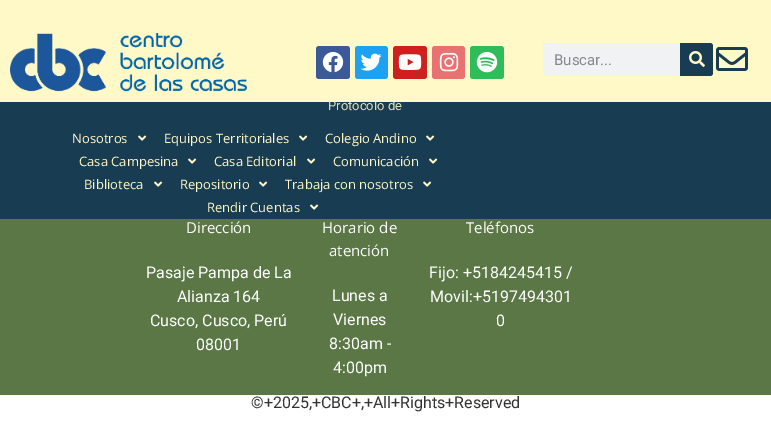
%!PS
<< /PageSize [771 443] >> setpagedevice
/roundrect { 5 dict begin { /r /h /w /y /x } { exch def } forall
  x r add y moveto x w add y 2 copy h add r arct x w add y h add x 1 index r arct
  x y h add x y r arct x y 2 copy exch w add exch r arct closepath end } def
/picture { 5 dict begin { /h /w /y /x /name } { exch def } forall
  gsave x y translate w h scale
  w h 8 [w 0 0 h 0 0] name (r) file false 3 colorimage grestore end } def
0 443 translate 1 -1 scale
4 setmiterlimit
1 setgray
0 0 771 443 rectfill
0.094 0.235 0.318 setrgbcolor
0 102 771 117 rectfill
/Roboto-Regular [13 0 0 -13 0 0] selectfont
0.878 0.863 0.706 setrgbcolor
328 110 moveto (Protocolo de) show
1 0.973 0.78 setrgbcolor
0 0 771 102 rectfill
(img1.rgb) 10 33 237 59 picture
0.231 0.349 0.596 setrgbcolor
316 46 34 33 3 roundrect fill
(img2.rgb) 322 52 22 21 picture
0.114 0.631 0.949 setrgbcolor
355 46 33 33 3 roundrect fill
(img3.rgb) 360 53 22 18 picture
0.804 0.125 0.122 setrgbcolor
393 46 34 33 3 roundrect fill
(img4.rgb) 398 54 24 16 picture
0.91 0.443 0.443 setrgbcolor
432 46 33 33 3 roundrect fill
(img5.rgb) 439 52 20 20 picture
0.18 0.741 0.349 setrgbcolor
470 46 34 33 3 roundrect fill
(img6.rgb) 476 52 22 21 picture
0.945 0.949 0.953 setrgbcolor
543 43 170 33 3 roundrect fill
/Roboto-Regular [15 0 0 -15 0 0] selectfont
0.525 0.541 0.557 setrgbcolor
554 65 moveto (Buscar...) show
0.094 0.235 0.318 setrgbcolor
newpath 680 43 moveto 710 43 lineto 711.5 43 713 44.5 713 46 curveto 713 73 lineto 713 74.5 711.5 76 710 76 curveto 680 76 lineto closepath fill
(img7.rgb) 689 51 16 16 picture
(img8.rgb) 716 47 32 24 picture
/OpenSans-Regular [13 0 0 -13 0 0] selectfont
1 0.973 0.78 setrgbcolor
72 143 moveto (Nosotros) show
(img9.rgb) 138 135 9 6 picture
164 143 moveto (Equipos Territoriales) show
(img9.rgb) 299 135 9 6 picture
325 143 moveto (Colegio Andino) show
(img9.rgb) 426 135 9 6 picture
79 166 moveto (Casa Campesina) show
(img9.rgb) 188 158 9 6 picture
214 166 moveto (Casa Editorial) show
(img9.rgb) 307 158 9 6 picture
333 166 moveto (Comunicación) show
(img9.rgb) 429 158 9 6 picture
84 189 moveto (Biblioteca) show
(img9.rgb) 154 181 9 6 picture
180 189 moveto (Repositorio) show
(img9.rgb) 259 181 9 6 picture
285 189 moveto (Trabaja con nosotros) show
(img9.rgb) 423 181 9 6 picture
207 212 moveto (Rendir Cuentas) show
(img9.rgb) 310 204 9 6 picture
0.353 0.467 0.271 setrgbcolor
0 219 771 176 rectfill
/OpenSans-Regular [15 0 0 -15 0 0] selectfont
1 setgray
186 233 moveto (Dirección) show
/Roboto-Regular [16 0 0 -16 0 0] selectfont
146 278 moveto (Pasaje Pampa de La) show
177 302 moveto (Alianza 164) show
150 326 moveto (Cusco, Cusco, Perú) show
196 350 moveto (08001) show
/OpenSans-Regular [15 0 0 -15 0 0] selectfont
322 233 moveto (Horario de) show
329 256 moveto (atención) show
/Roboto-Regular [16 0 0 -16 0 0] selectfont
332 301 moveto (Lunes a) show
333 325 moveto (Viernes) show
329 349 moveto (8:30am -) show
333 373 moveto (4:00pm) show
/OpenSans-Regular [15 0 0 -15 0 0] selectfont
466 233 moveto (Teléfonos) show
/Roboto-Regular [16 0 0 -16 0 0] selectfont
429 278 moveto (Fijo: +5184245415 /) show
430 302 moveto (Movil:+5197494301) show
496 326 moveto (0) show
0.2 setgray
251 408 moveto (©+2025,+CBC+,+All+Rights+Reserved) show
showpage
